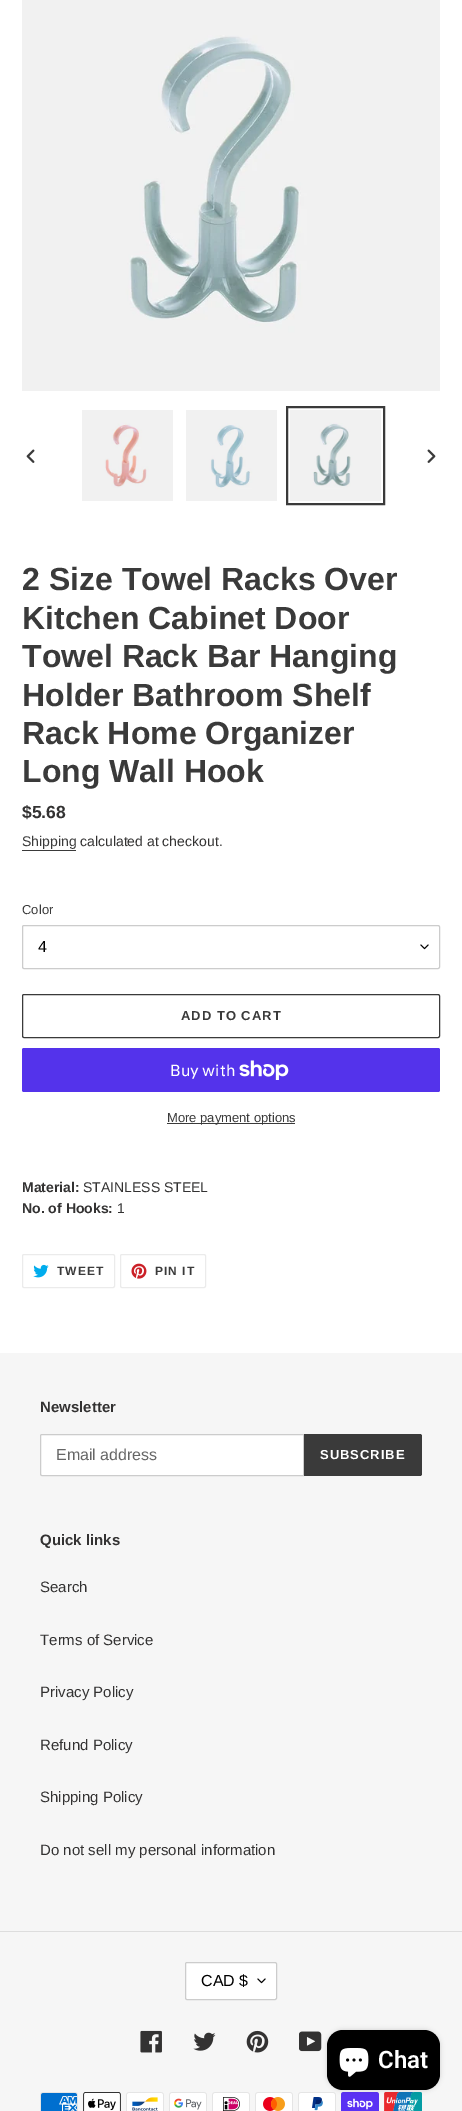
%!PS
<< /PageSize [462 2111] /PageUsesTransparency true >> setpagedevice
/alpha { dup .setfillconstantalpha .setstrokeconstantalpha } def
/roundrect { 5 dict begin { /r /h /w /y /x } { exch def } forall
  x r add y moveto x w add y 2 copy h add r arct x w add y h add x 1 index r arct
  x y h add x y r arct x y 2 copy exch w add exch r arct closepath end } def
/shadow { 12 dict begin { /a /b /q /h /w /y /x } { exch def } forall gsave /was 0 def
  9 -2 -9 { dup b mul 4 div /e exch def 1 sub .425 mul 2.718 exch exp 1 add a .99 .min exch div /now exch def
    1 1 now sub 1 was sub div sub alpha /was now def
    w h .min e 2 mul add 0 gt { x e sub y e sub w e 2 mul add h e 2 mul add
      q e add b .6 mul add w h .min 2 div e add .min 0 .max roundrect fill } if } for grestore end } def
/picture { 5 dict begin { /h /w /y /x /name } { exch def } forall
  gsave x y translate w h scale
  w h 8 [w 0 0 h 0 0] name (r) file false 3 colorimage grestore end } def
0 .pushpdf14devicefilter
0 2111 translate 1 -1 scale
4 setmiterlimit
1 setgray
0 0 462 2111 rectfill
(img1.rgb) 22 0 418 391 picture
(img2.rgb) 26 449 9 14 picture
(img3.rgb) 82 410 91 91 picture
(img4.rgb) 186 410 91 91 picture
0.227 setgray
2 setlinewidth
287 407 97 97 rectstroke
(img5.rgb) 290 410 91 91 picture
(img6.rgb) 427 449 9 14 picture
/LiberationSans-Bold [32 0 0 -32 0 0] selectfont
22 590 moveto (2 Size Towel Racks Over) show
22 629 moveto (Kitchen Cabinet Door) show
22 667 moveto (Towel Rack Bar Hanging) show
22 706 moveto (Holder Bathroom Shelf) show
22 744 moveto (Rack Home Organizer) show
22 782 moveto (Long Wall Hook) show
/LiberationSans-Bold [17.5 0 0 -17.5 0 0] selectfont
0.2 0.196 0.196 setrgbcolor
22 818 moveto ($5.68) show
/LiberationSans-Regular [14 0 0 -14 0 0] selectfont
0.227 setgray
22 846 moveto (Shipping) show
22 850 54 1 rectfill
0.2 0.196 0.196 setrgbcolor
80 846 moveto (calculated at checkout.) show
/LiberationSans-Regular [13 0 0 -13 0 0] selectfont
0.227 setgray
22 914 moveto (Color) show
(img7.rgb) 420 944 9 6 picture
0.8 setgray
1 setlinewidth
22.5 925.5 417 43 1.5 roundrect stroke
/LiberationSans-Regular [16 0 0 -16 0 0] selectfont
0 setgray
38 952 moveto (4) show
0.227 setgray
22.5 994.5 417 43 1.5 roundrect stroke
/LiberationSans-Bold [13 0 0 -13 0 0] selectfont
181 1020 moveto 1 0 (ADD TO CART) ashow
0.329 0.2 0.922 setrgbcolor
22 1048 418 44 2 roundrect fill
/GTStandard-Regular [16 0 0 -16 0 0] selectfont
1 setgray
170 1076 moveto (Buy with) show
(img8.rgb) 239 1060 50 20 picture
0.227 setgray
167 1123 128 1 rectfill
/LiberationSans-Regular [13 0 0 -13 0 0] selectfont
167 1122 moveto (More payment options) show
/LiberationSans-Bold [14 0 0 -14 0 0] selectfont
0.2 0.196 0.196 setrgbcolor
22 1192 moveto (Material:) show
/LiberationSans-Regular [14 0 0 -14 0 0] selectfont
83 1192 moveto (STAINLESS STEEL) show
/LiberationSans-Bold [14 0 0 -14 0 0] selectfont
22 1213 moveto (No. of Hooks:) show
/LiberationSans-Regular [14 0 0 -14 0 0] selectfont
117 1213 moveto (1) show
0.922 setgray
22.5 1254.5 92 33 1.5 roundrect stroke
(img9.rgb) 33 1264 16 14 picture
/LiberationSans-Bold [12 0 0 -12 0 0] selectfont
0.227 setgray
57 1275 moveto 1 0 (TWEET) ashow
0.922 setgray
120.5 1254.5 85 33 1.5 roundrect stroke
(img10.rgb) 131 1263 16 16 picture
0.227 setgray
155 1275 moveto 1 0 (PIN IT) ashow
0.965 setgray
0 1353 462 758 rectfill
/LiberationSans-Bold [15 0 0 -15 0 0] selectfont
0.2 0.196 0.196 setrgbcolor
40 1412 moveto (Newsletter) show
1 setgray
newpath 42 1434.5 moveto 303.5 1434.5 lineto 303.5 1475.5 lineto 42 1475.5 lineto 41 1475.5 40.5 1475 40.5 1474 curveto 40.5 1436 lineto 40.5 1435 41 1434.5 42 1434.5 curveto closepath gsave fill grestore
0.8 setgray
stroke
/LiberationSans-Regular [16 0 0 -16 0 0] selectfont
0.4 setgray
56 1460 moveto (Email address) show
0.227 setgray
newpath 304 1434 moveto 420 1434 lineto 421 1434 422 1435 422 1436 curveto 422 1474 lineto 422 1475 421 1476 420 1476 curveto 304 1476 lineto closepath fill
/LiberationSans-Bold [13 0 0 -13 0 0] selectfont
1 setgray
320 1459 moveto 1 0 (SUBSCRIBE) ashow
/LiberationSans-Bold [15 0 0 -15 0 0] selectfont
0.2 0.196 0.196 setrgbcolor
40 1545 moveto (Quick links) show
/LiberationSans-Regular [15 0 0 -15 0 0] selectfont
40 1592 moveto (Search) show
40 1645 moveto (Terms of Service) show
40 1697 moveto (Privacy Policy) show
40 1750 moveto (Refund Policy) show
40 1802 moveto (Shipping Policy) show
40 1855 moveto (Do not sell my personal information) show
0.867 setgray
0 1931 462 1 rectfill
1 setgray
185 1962 92 38 2 roundrect fill
(img7.rgb) 257 1978 9 6 picture
0.8 setgray
185.5 1962.5 91 37 1.5 roundrect stroke
/LiberationSans-Regular [16 0 0 -16 0 0] selectfont
0 setgray
201 1986 moveto (CAD $) show
(img11.rgb) 140 2030 22 23 picture
(img12.rgb) 193 2032 23 19 picture
(img13.rgb) 246 2030 23 23 picture
(img14.rgb) 299 2031 23 21 picture
(img15.rgb) 40 2092 38 19 picture
(img16.rgb) 83 2092 38 19 picture
(img17.rgb) 126 2092 38 19 picture
(img18.rgb) 169 2092 38 19 picture
(img19.rgb) 212 2092 38 19 picture
(img20.rgb) 255 2092 38 19 picture
(img21.rgb) 298 2092 38 19 picture
(img22.rgb) 341 2092 38 19 picture
(img23.rgb) 384 2092 38 19 picture
327 2030 113 60 16 2.5 0.15 shadow
327 2030 113 60 16 roundrect fill
(img24.rgb) 339 2048 30 29 picture
/Roboto-SemiBold [24 0 0 -24 0 0] selectfont
1 setgray
378 2068 moveto (Chat) show
.poppdf14devicefilter showpage
